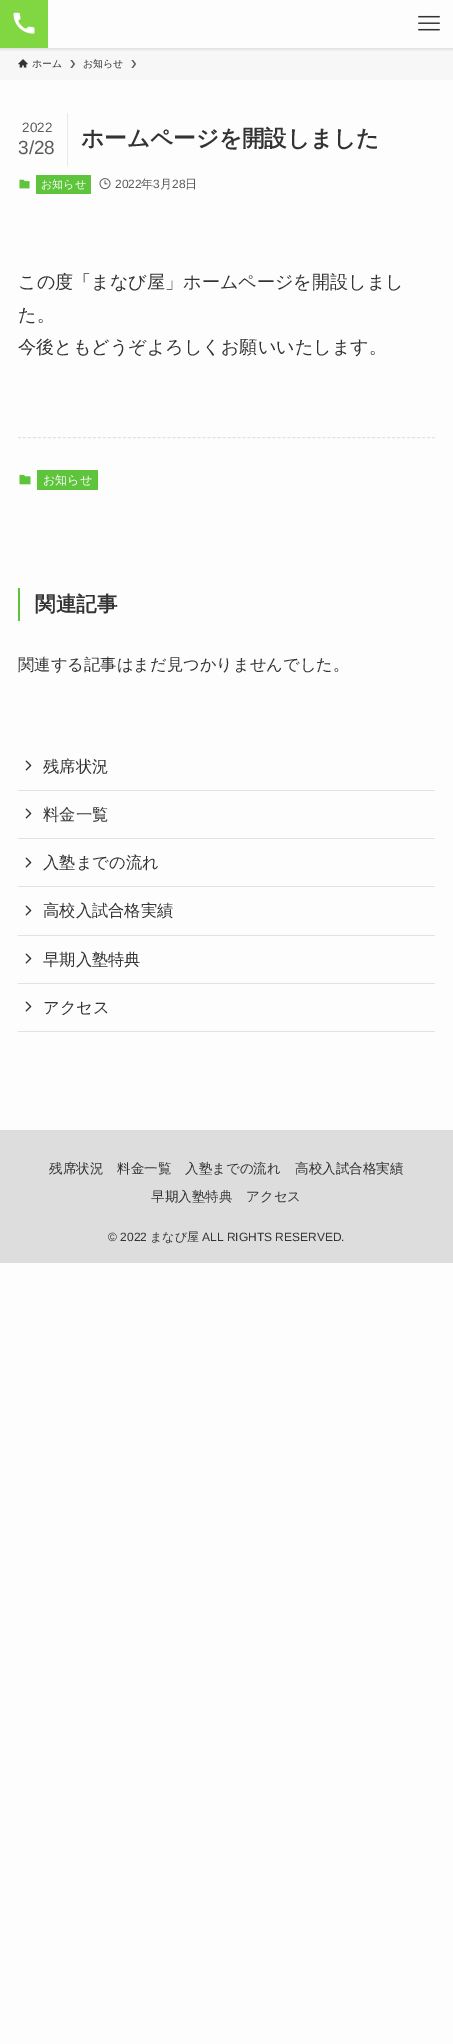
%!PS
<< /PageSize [453 2044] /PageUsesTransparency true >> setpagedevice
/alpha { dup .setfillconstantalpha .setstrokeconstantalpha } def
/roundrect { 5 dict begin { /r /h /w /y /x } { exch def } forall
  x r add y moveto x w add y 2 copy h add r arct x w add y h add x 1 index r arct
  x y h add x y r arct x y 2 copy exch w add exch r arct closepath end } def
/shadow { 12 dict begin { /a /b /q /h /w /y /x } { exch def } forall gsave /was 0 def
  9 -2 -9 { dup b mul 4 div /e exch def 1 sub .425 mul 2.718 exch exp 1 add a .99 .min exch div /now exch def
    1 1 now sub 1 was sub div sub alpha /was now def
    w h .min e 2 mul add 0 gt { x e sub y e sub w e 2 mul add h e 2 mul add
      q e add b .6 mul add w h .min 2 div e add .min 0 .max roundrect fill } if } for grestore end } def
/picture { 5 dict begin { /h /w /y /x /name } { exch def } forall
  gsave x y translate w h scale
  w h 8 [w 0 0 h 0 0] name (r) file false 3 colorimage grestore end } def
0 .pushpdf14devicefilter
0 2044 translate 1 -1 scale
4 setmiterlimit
0.992 setgray
0 0 453 2044 rectfill
0.969 setgray
0 48 453 32 rectfill
gsave
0 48 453 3 rectclip
0 setgray
0 1 453 48 0 2 0.12 shadow
grestore
0.506 0.843 0.259 setrgbcolor
0 0 48 48 rectfill
(img1.rgb) 13 12 22 22 picture
(img2.rgb) 418 15 22 16 picture
(img3.rgb) 18 59 10 9 picture
/WenQuanYiZenHei-Medium [10 0 0 -10 0 0] selectfont
0.2 setgray
32 67 moveto (ホーム) show
0.353 setgray
newpath 72 60 moveto 70.5 60 lineto 73.5 64 lineto 70.5 68 lineto 72 68 lineto 75 64 lineto closepath fill
0.2 setgray
83 67 moveto (お知らせ) show
0.353 setgray
newpath 133 60 moveto 131.5 60 lineto 134.5 64 lineto 131.5 68 lineto 133 68 lineto 136 64 lineto closepath fill
0.91 setgray
67 113 1 53 rectfill
/LiberationSans-Regular [13.5 0 0 -13.5 0 0] selectfont
0.357 setgray
22 132 moveto (2022) show
/LiberationSans-Regular [19 0 0 -19 0 0] selectfont
18 154 moveto (3/28) show
/WenQuanYiZenHei-Bold [22.6 0 0 -22.6 0 0] selectfont
0.2 setgray
81 146 moveto (ホームページを開設しました) show
(img4.rgb) 19 179 11 10 picture
0.369 0.769 0.235 setrgbcolor
36 175 55 19 1 roundrect fill
/WenQuanYiZenHei-Medium [11 0 0 -11 0 0] selectfont
1 setgray
41 188 moveto (お知らせ) show
(img5.rgb) 99 178 12 12 picture
/LiberationSans-Regular [12 0 0 -12 0 0] selectfont
0.357 setgray
115 188 moveto (2022) show
/WenQuanYiZenHei-Medium [12 0 0 -12 0 0] selectfont
141 188 moveto (年) show
/LiberationSans-Regular [12 0 0 -12 0 0] selectfont
153 188 moveto (3) show
/WenQuanYiZenHei-Medium [12 0 0 -12 0 0] selectfont
160 188 moveto (月) show
/LiberationSans-Regular [12 0 0 -12 0 0] selectfont
172 188 moveto (28) show
/WenQuanYiZenHei-Medium [12 0 0 -12 0 0] selectfont
185 188 moveto (日) show
/WenQuanYiZenHei-Medium [18.1 0 0 -18.1 0 0] selectfont
0.2 setgray
18 288 moveto (この度「まなび屋」ホームページを開設しまし) show
18 321 moveto (た。) show
18 353 moveto (今後ともどうぞよろしくお願いいたします。) show
0.886 setgray
[3 1.99] 0 setdash
newpath 18 437.5 moveto 435 437.5 lineto stroke
(img6.rgb) 19 474 12 11 picture
0.369 0.769 0.235 setrgbcolor
37 470 61 20 1 roundrect fill
/WenQuanYiZenHei-Medium [12 0 0 -12 0 0] selectfont
1 setgray
43 484 moveto (お知らせ) show
0.369 0.769 0.235 setrgbcolor
18 588 2 33 rectfill
/WenQuanYiZenHei-Bold [20.5 0 0 -20.5 0 0] selectfont
0.2 setgray
35 611 moveto (関連記事) show
/WenQuanYiZenHei-Medium [16.3 0 0 -16.3 0 0] selectfont
18 670 moveto (関連する記事はまだ見つかりませんでした。) show
0.886 setgray
18 790 417 1 rectfill
(img7.rgb) 25 760 7 11 picture
0.2 setgray
43 772 moveto (残席状況) show
0.886 setgray
18 838 417 1 rectfill
(img7.rgb) 25 808 7 11 picture
0.2 setgray
43 820 moveto (料金一覧) show
0.886 setgray
18 886 417 1 rectfill
(img7.rgb) 25 857 7 11 picture
0.2 setgray
43 868 moveto (入塾までの流れ) show
0.886 setgray
18 935 417 1 rectfill
(img7.rgb) 25 905 7 11 picture
0.2 setgray
43 916 moveto (高校入試合格実績) show
0.886 setgray
18 983 417 1 rectfill
(img7.rgb) 25 953 7 11 picture
0.2 setgray
43 965 moveto (早期入塾特典) show
0.886 setgray
18 1031 417 1 rectfill
(img7.rgb) 25 1001 7 11 picture
0.2 setgray
43 1013 moveto (アクセス) show
0.867 setgray
0 1130 453 133 rectfill
/WenQuanYiZenHei-Medium [13.5 0 0 -13.5 0 0] selectfont
0.2 setgray
49 1173 moveto (残席状況) show
117 1173 moveto (料金一覧) show
185 1173 moveto (入塾までの流れ) show
295 1173 moveto (高校入試合格実績) show
151 1201 moveto (早期入塾特典) show
246 1201 moveto (アクセス) show
/LiberationSans-Regular [12 0 0 -12 0 0] selectfont
108 1241 moveto (© 2022) show
/WenQuanYiZenHei-Medium [12 0 0 -12 0 0] selectfont
150 1241 moveto (まなび屋) show
/LiberationSans-Regular [12 0 0 -12 0 0] selectfont
202 1241 moveto (ALL RIGHTS RESERVED.) show
.poppdf14devicefilter showpage
